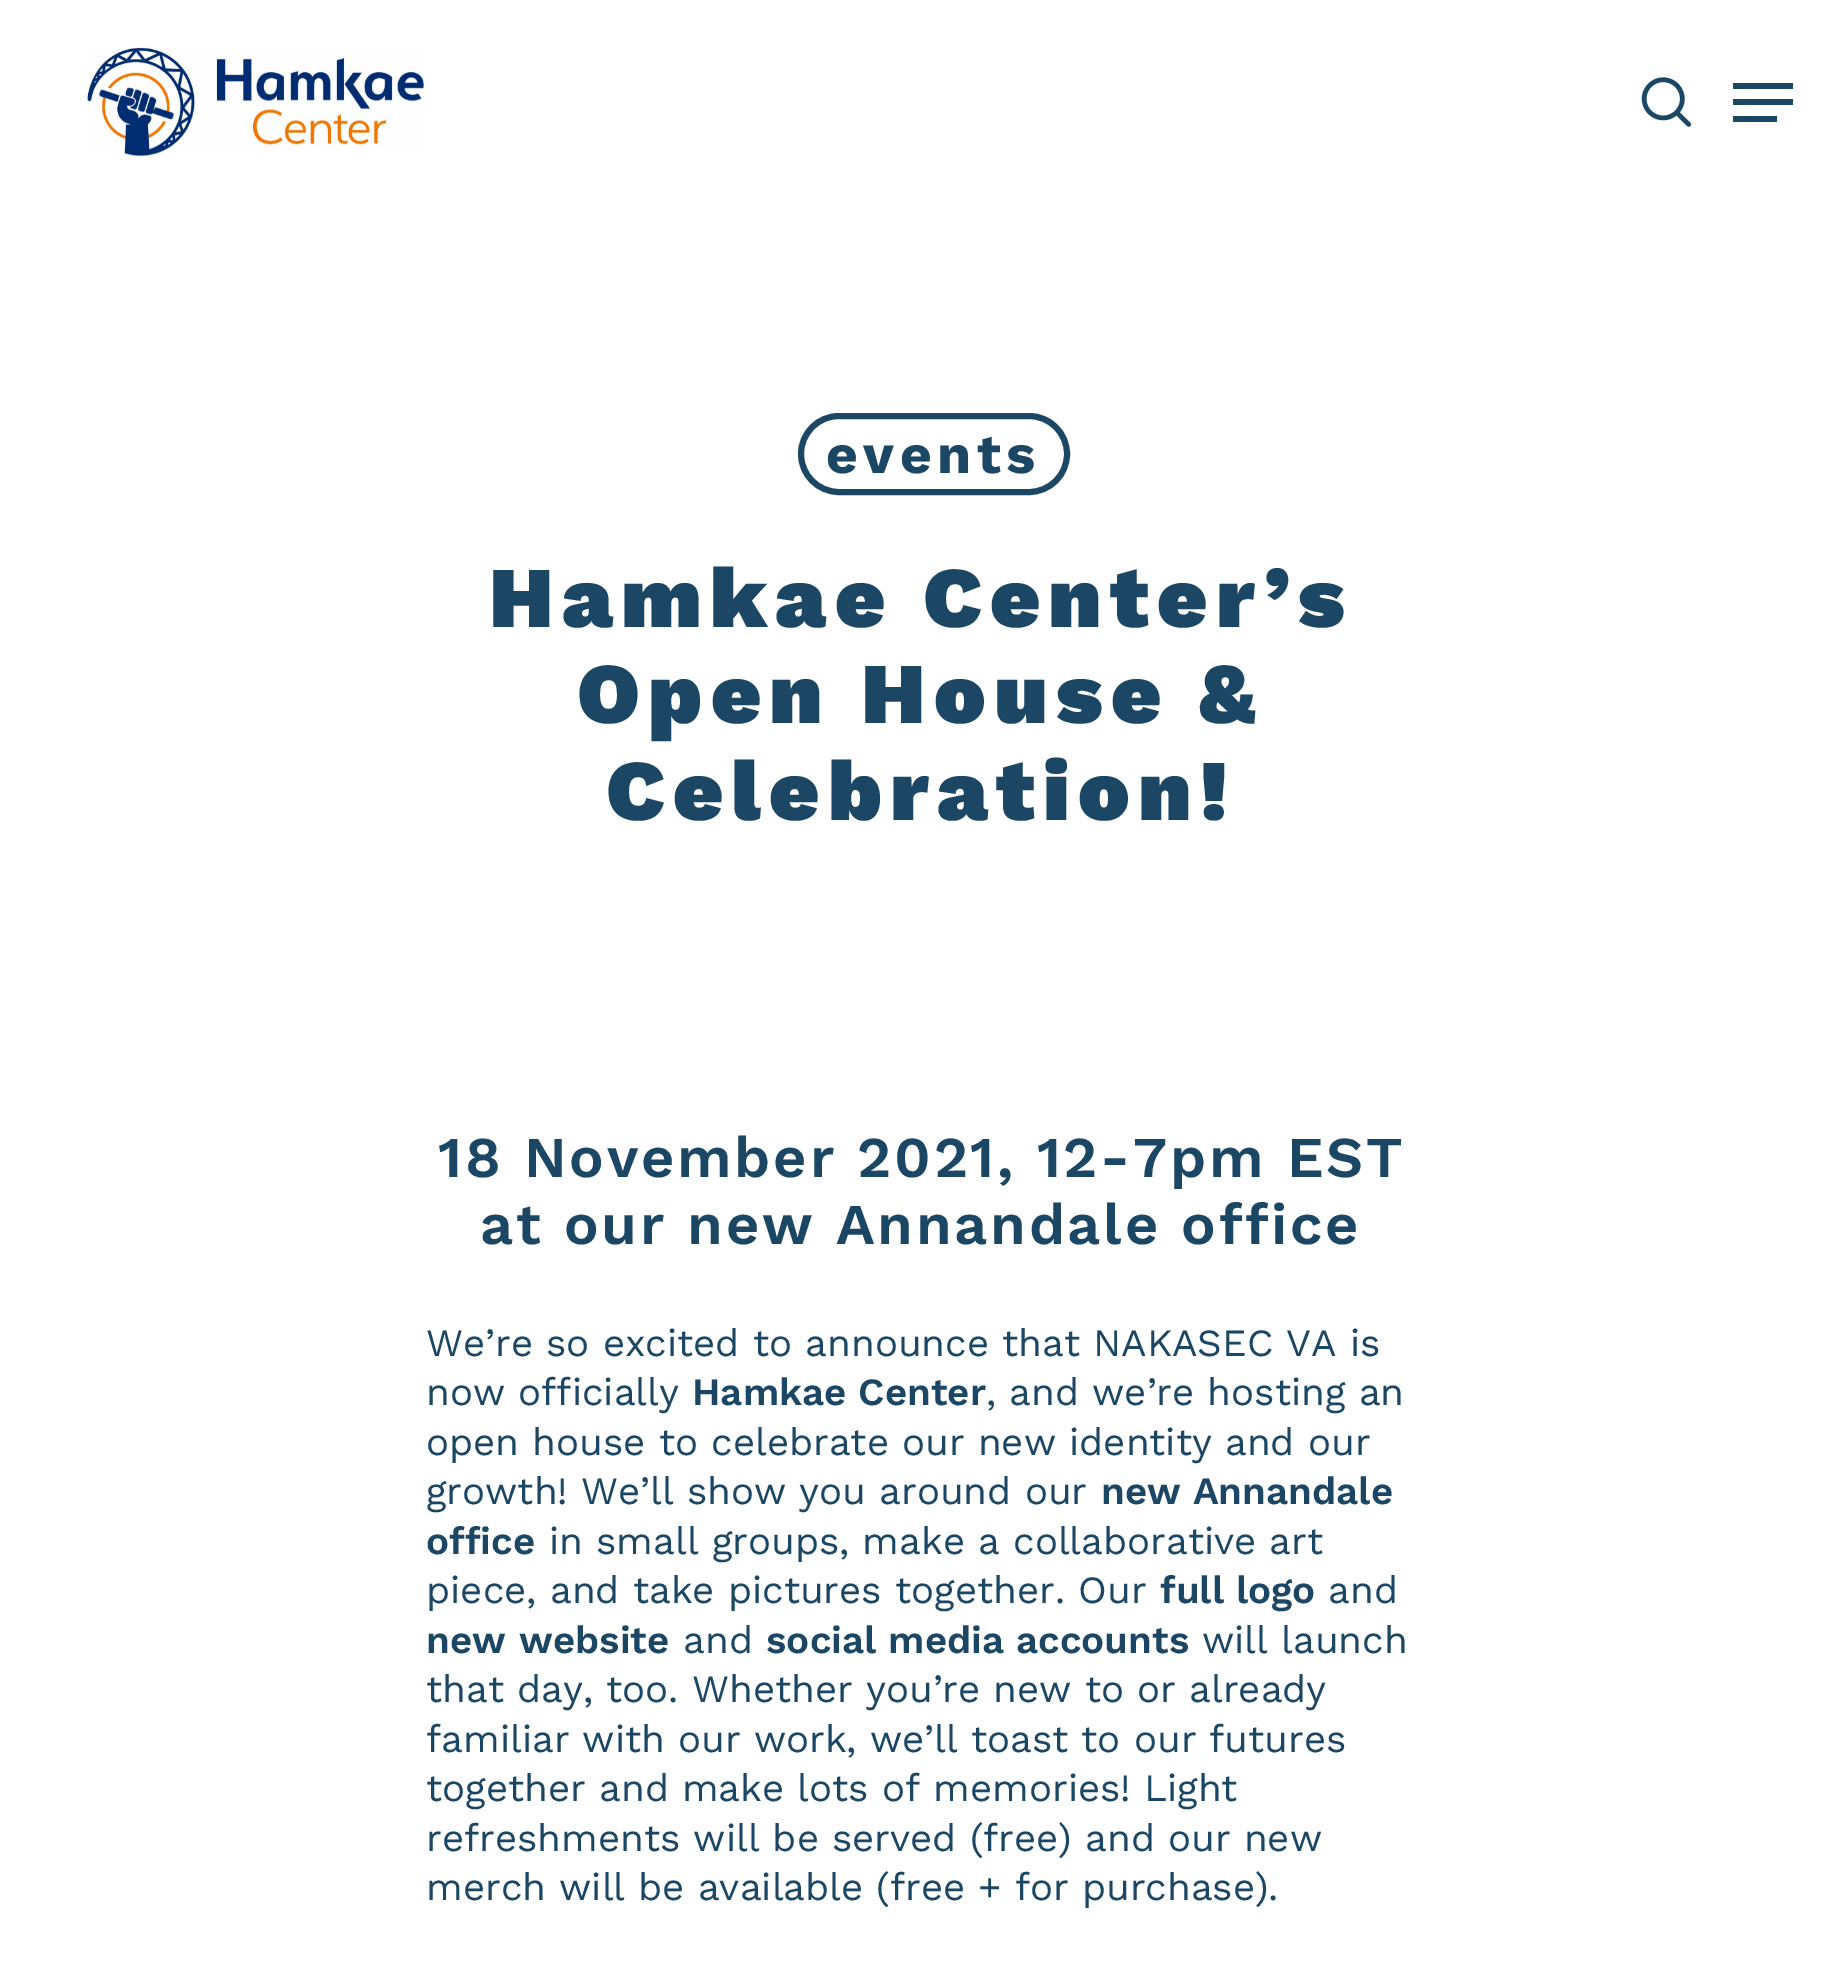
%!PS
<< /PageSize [1842 1969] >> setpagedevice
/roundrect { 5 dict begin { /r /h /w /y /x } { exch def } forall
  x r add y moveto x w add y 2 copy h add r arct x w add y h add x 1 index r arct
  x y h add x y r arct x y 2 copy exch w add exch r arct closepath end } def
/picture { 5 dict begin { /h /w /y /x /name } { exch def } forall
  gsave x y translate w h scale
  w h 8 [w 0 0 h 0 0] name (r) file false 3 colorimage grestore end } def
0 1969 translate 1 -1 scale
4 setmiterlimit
1 setgray
0 0 1842 1969 rectfill
(img1.rgb) 87 47 338 109 picture
(img2.rgb) 1641 77 51 50 picture
0.106 0.278 0.396 setrgbcolor
1733 83 60 6 rectfill
1733 116 44 6 rectfill
1733 99 60 6 rectfill
6 setlinewidth
801 416 266 76 38 roundrect stroke
/WorkSans-Bold [55 0 0 -55 0 0] selectfont
826 473 moveto 5.5 0 (events) ashow
/WorkSans-Black [86.6 0 0 -86.6 0 0] selectfont
489 627 moveto 8.25 0 (Hamkae Center’s) ashow
577 723 moveto 8.25 0 (Open House &) ashow
606 820 moveto 8.25 0 (Celebration!) ashow
/WorkSans-SemiBold [57.75 0 0 -57.75 0 0] selectfont
438 1177 moveto 2.75 0 (18 November 2021, 12-7pm EST) ashow
480 1244 moveto 2.75 0 (at our new Annandale office) ashow
/WorkSans-Regular [38.5 0 0 -38.5 0 0] selectfont
426 1356 moveto (We’re so excited to announce that NAKASEC VA is) show
426 1405 moveto (now officially) show
/WorkSans-SemiBold [38.5 0 0 -38.5 0 0] selectfont
692 1405 moveto (Hamkae Center) show
/WorkSans-Regular [38.5 0 0 -38.5 0 0] selectfont
986 1405 moveto (, and we’re hosting an) show
426 1455 moveto (open house to celebrate our new identity and our) show
426 1504 moveto (growth! We’ll show you around our) show
/WorkSans-SemiBold [38.5 0 0 -38.5 0 0] selectfont
1101 1504 moveto (new Annandale) show
426 1554 moveto (office) show
/WorkSans-Regular [38.5 0 0 -38.5 0 0] selectfont
549 1554 moveto (in small groups, make a collaborative art) show
426 1603 moveto (piece, and take pictures together. Our) show
/WorkSans-SemiBold [38.5 0 0 -38.5 0 0] selectfont
1160 1603 moveto (full logo) show
/WorkSans-Regular [38.5 0 0 -38.5 0 0] selectfont
1328 1603 moveto (and) show
/WorkSans-SemiBold [38.5 0 0 -38.5 0 0] selectfont
426 1653 moveto (new) show
519 1653 moveto (website) show
/WorkSans-Regular [38.5 0 0 -38.5 0 0] selectfont
683 1653 moveto (and) show
/WorkSans-SemiBold [38.5 0 0 -38.5 0 0] selectfont
766 1653 moveto (social media accounts) show
/WorkSans-Regular [38.5 0 0 -38.5 0 0] selectfont
1202 1653 moveto (will launch) show
426 1702 moveto (that day, too. Whether you’re new to or already) show
426 1752 moveto (familiar with our work, we’ll toast to our futures) show
426 1801 moveto (together and make lots of memories! Light) show
426 1851 moveto (refreshments will be served \(free\) and our new) show
426 1900 moveto (merch will be available \(free + for purchase\).) show
showpage
